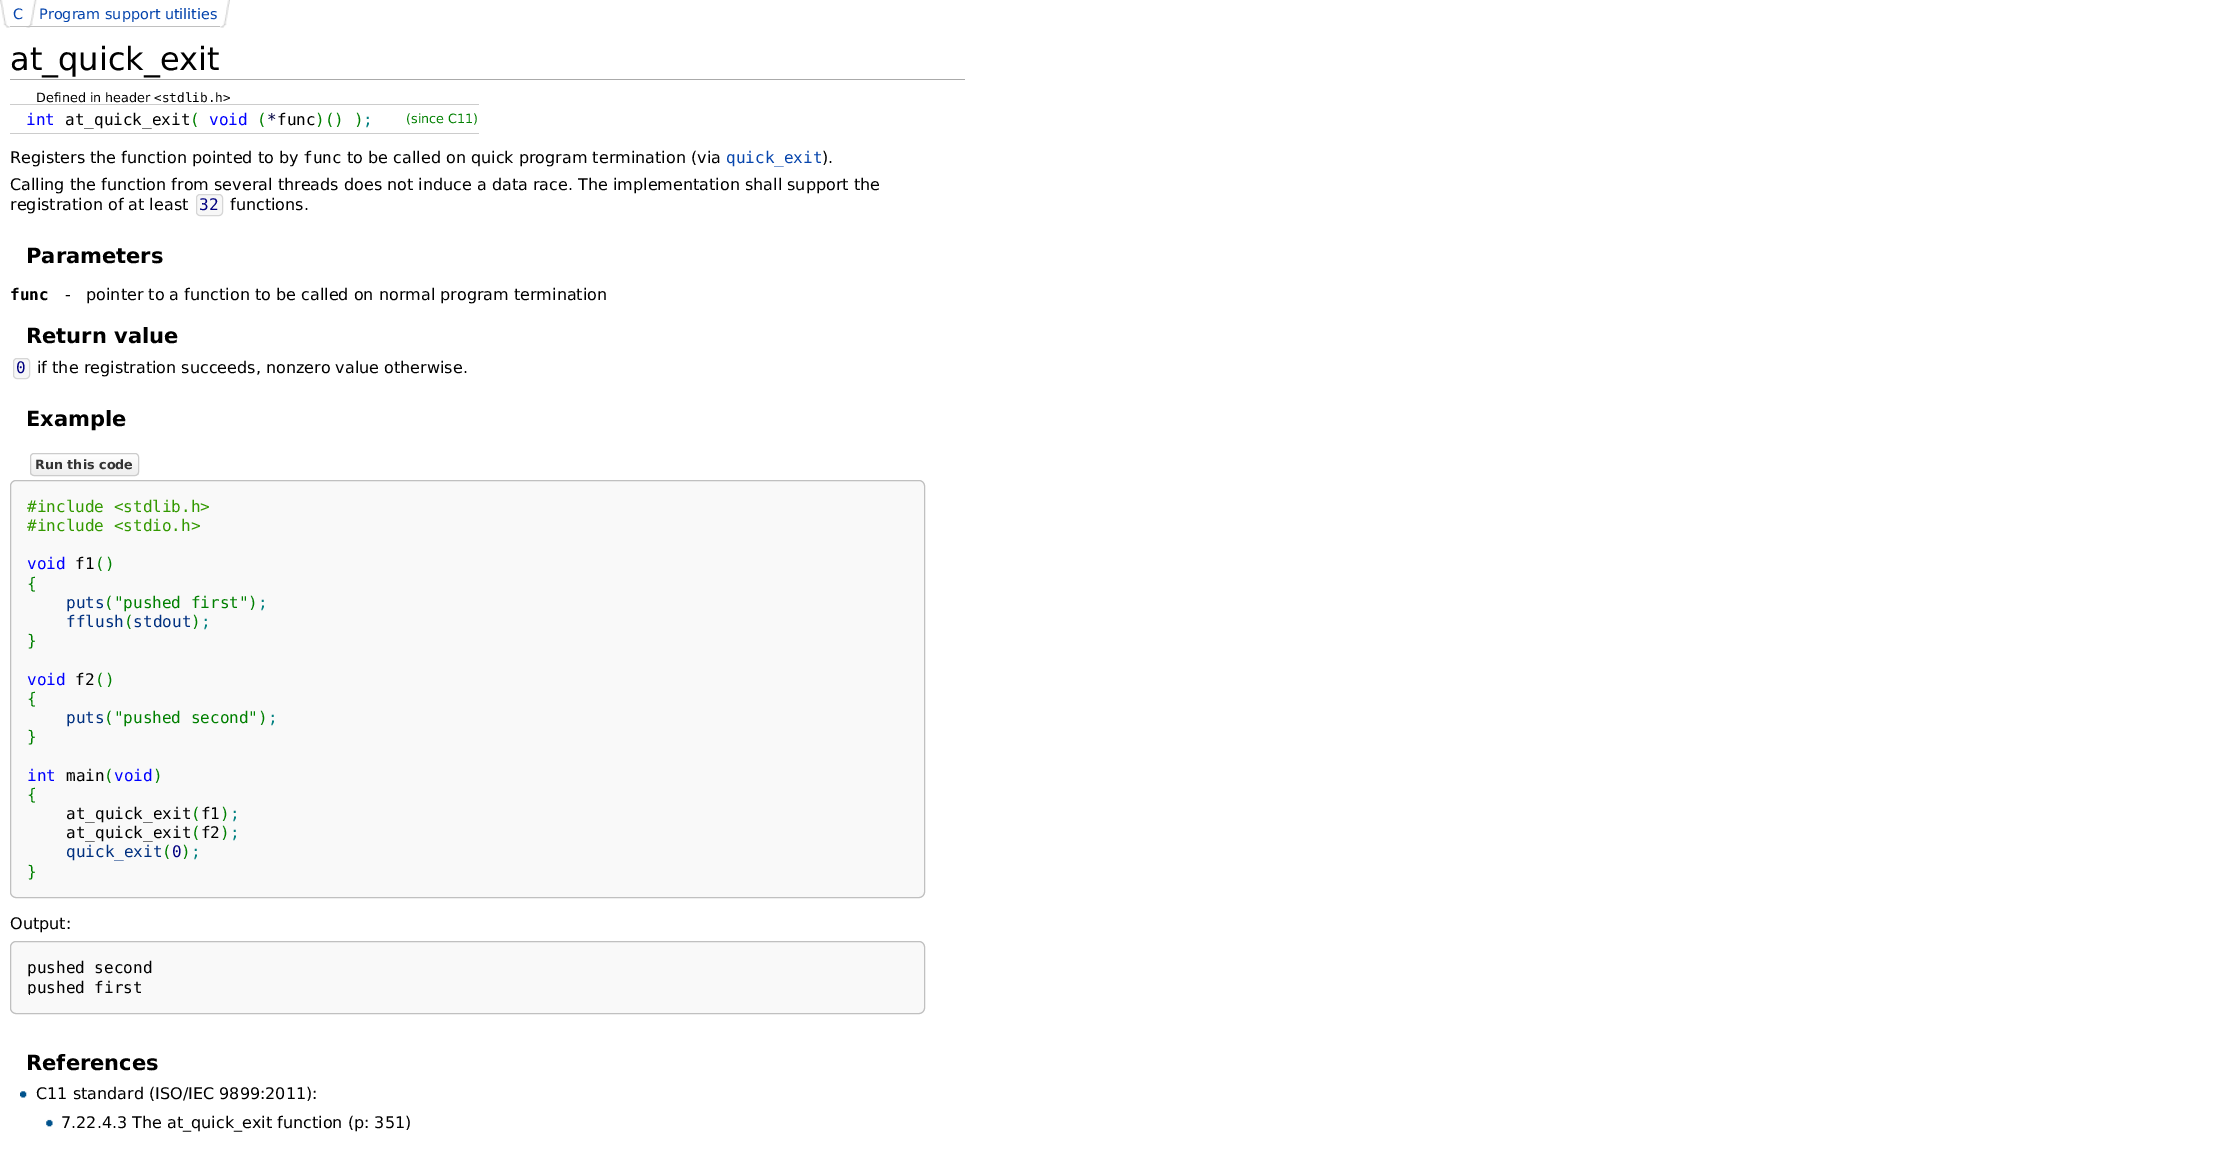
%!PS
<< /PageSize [2228 1167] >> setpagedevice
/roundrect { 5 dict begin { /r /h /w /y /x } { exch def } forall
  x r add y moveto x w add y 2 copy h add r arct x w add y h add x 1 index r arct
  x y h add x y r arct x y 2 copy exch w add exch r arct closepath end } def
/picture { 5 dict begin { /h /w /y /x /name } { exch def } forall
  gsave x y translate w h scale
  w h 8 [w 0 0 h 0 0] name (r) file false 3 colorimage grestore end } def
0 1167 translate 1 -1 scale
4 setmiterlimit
1 setgray
0 0 2228 1167 rectfill
(img1.rgb) 0 0 10 28 picture
0.753 setgray
10 26 16 1 rectfill
/DejaVuSans-Regular [14.4 0 0 -14.4 0 0] selectfont
0.024 0.271 0.678 setrgbcolor
13 19 moveto (C) show
(img2.rgb) 26 0 11 28 picture
0.753 setgray
26 26 194 1 rectfill
(img3.rgb) 220 0 10 28 picture
0.024 0.271 0.678 setrgbcolor
39 19 moveto (Program support utilities) show
/DejaVuSans-Regular [12.75 0 0 -12.75 0 0] selectfont
0 setgray
36 102 moveto (Defined in header) show
/DejaVuSansMono-Regular [12.75 0 0 -12.75 0 0] selectfont
154 102 moveto (<stdlib.h>) show
0.8 setgray
10 104 469 1 rectfill
/DejaVuSansMono-Regular [16 0 0 -16 0 0] selectfont
0 0 1 setrgbcolor
26 125 moveto (int) show
0 setgray
65 125 moveto (at_quick_exit) show
0 0.502 0 setrgbcolor
190 125 moveto (\() show
0 0 1 setrgbcolor
209 125 moveto (void) show
0 0.502 0 setrgbcolor
257 125 moveto (\() show
0 0 0.251 setrgbcolor
267 125 moveto (*) show
0 setgray
277 125 moveto (func) show
0 0.502 0 setrgbcolor
315 125 moveto (\)\(\) \)) show
0 0.502 0.502 setrgbcolor
363 125 moveto (;) show
/DejaVuSans-Regular [12.75 0 0 -12.75 0 0] selectfont
0 0.502 0 setrgbcolor
406 123 moveto (\(since C11\)) show
0.8 setgray
10 133 469 1 rectfill
/DejaVuSans-Regular [16 0 0 -16 0 0] selectfont
0 setgray
10 163 moveto (Registers the function pointed to by) show
/DejaVuSansMono-Regular [16 0 0 -16 0 0] selectfont
303 163 moveto (func) show
/DejaVuSans-Regular [16 0 0 -16 0 0] selectfont
347 163 moveto (to be called on quick program termination \(via) show
/DejaVuSansMono-Regular [16 0 0 -16 0 0] selectfont
0.024 0.271 0.678 setrgbcolor
726 163 moveto (quick_exit) show
/DejaVuSans-Regular [16 0 0 -16 0 0] selectfont
0 setgray
822 163 moveto (\).) show
10 190 moveto (Calling the function from several threads does not induce a data race. The implementation shall support the) show
10 210 moveto (registration of at least) show
0.969 setgray
196.5 194.5 26 21 3.5 roundrect gsave fill grestore
0.839 setgray
stroke
/DejaVuSansMono-Regular [16 0 0 -16 0 0] selectfont
0 0 0.502 setrgbcolor
199 210 moveto (32) show
/DejaVuSans-Regular [16 0 0 -16 0 0] selectfont
0 setgray
230 210 moveto (functions.) show
/DejaVuSans-Bold [21 0 0 -21 0 0] selectfont
26 263 moveto (Parameters) show
/DejaVuSansMono-Bold [16 0 0 -16 0 0] selectfont
10 300 moveto (func) show
/DejaVuSans-Regular [16 0 0 -16 0 0] selectfont
65 300 moveto (-) show
86 300 moveto (pointer to a function to be called on normal program termination) show
/DejaVuSans-Bold [21 0 0 -21 0 0] selectfont
26 343 moveto (Return value) show
0.969 setgray
13.5 358.5 16 20 3.5 roundrect gsave fill grestore
0.839 setgray
stroke
/DejaVuSansMono-Regular [16 0 0 -16 0 0] selectfont
0 0 0.502 setrgbcolor
16 373 moveto (0) show
/DejaVuSans-Regular [16 0 0 -16 0 0] selectfont
0 setgray
37 373 moveto (if the registration succeeds, nonzero value otherwise.) show
/DejaVuSans-Bold [21 0 0 -21 0 0] selectfont
26 426 moveto (Example) show
gsave
30 453 109 23 4 roundrect clip newpath
gsave newpath 30 454 moveto 139 454 lineto 139 475 lineto 30 475 lineto closepath clip newpath
<< /ShadingType 2 /ColorSpace /DeviceRGB /Coords [84 454 84 475] /Extend [true true] /Function << /FunctionType 2 /Domain [0 1] /C0 [1 1 1] /C1 [0.933 0.933 0.933] /N 1 >> >> shfill grestore
grestore
0.8 setgray
30.5 453.5 108 22 3.5 roundrect stroke
/DejaVuSans-Bold [12.75 0 0 -12.75 0 0] selectfont
0.2 setgray
35 469 moveto (Run this code) show
0.976 setgray
10.5 480.5 914 417 5.5 roundrect gsave fill grestore
0.753 setgray
stroke
/DejaVuSansMono-Regular [16 0 0 -16 0 0] selectfont
0.2 0.6 0 setrgbcolor
27 512 moveto (#include <stdlib.h>) show
27 531 moveto (#include <stdio.h>) show
0 0 1 setrgbcolor
27 569 moveto (void) show
0 setgray
75 569 moveto (f1) show
0 0.502 0 setrgbcolor
95 569 moveto (\(\)) show
27 589 moveto ({) show
0 0.188 0.502 setrgbcolor
66 608 moveto (puts) show
0 0.502 0 setrgbcolor
104 608 moveto (\("pushed first"\)) show
0 0.502 0.502 setrgbcolor
258 608 moveto (;) show
0 0.188 0.502 setrgbcolor
66 627 moveto (fflush stdout) show
0 0.502 0 setrgbcolor
124 627 moveto (\() show
191 627 moveto (\)) show
0 0.502 0.502 setrgbcolor
201 627 moveto (;) show
0 0.502 0 setrgbcolor
27 646 moveto (}) show
0 0 1 setrgbcolor
27 685 moveto (void) show
0 setgray
75 685 moveto (f2) show
0 0.502 0 setrgbcolor
95 685 moveto (\(\)) show
27 704 moveto ({) show
0 0.188 0.502 setrgbcolor
66 723 moveto (puts) show
0 0.502 0 setrgbcolor
104 723 moveto (\("pushed second"\)) show
0 0.502 0.502 setrgbcolor
268 723 moveto (;) show
0 0.502 0 setrgbcolor
27 742 moveto (}) show
0 0 1 setrgbcolor
27 781 moveto (int) show
0 setgray
66 781 moveto (main) show
0 0.502 0 setrgbcolor
104 781 moveto (\() show
0 0 1 setrgbcolor
114 781 moveto (void) show
0 0.502 0 setrgbcolor
153 781 moveto (\)) show
27 800 moveto ({) show
0 setgray
66 819 moveto (at_quick_exit f1) show
0 0.502 0 setrgbcolor
191 819 moveto (\() show
220 819 moveto (\)) show
0 0.502 0.502 setrgbcolor
230 819 moveto (;) show
0 setgray
66 838 moveto (at_quick_exit f2) show
0 0.502 0 setrgbcolor
191 838 moveto (\() show
220 838 moveto (\)) show
0 0.502 0.502 setrgbcolor
230 838 moveto (;) show
0 0.188 0.502 setrgbcolor
66 857 moveto (quick_exit) show
0 0.502 0 setrgbcolor
162 857 moveto (\( \)) show
0 0 0.502 setrgbcolor
172 857 moveto (0) show
0 0.502 0.502 setrgbcolor
191 857 moveto (;) show
gsave
28 496 880 385 6 roundrect clip newpath
0 0.502 0 setrgbcolor
27 877 moveto (}) show
grestore
/DejaVuSans-Regular [16 0 0 -16 0 0] selectfont
0 setgray
10 929 moveto (Output:) show
0.976 setgray
10.5 941.5 914 72 5.5 roundrect gsave fill grestore
0.753 setgray
stroke
/DejaVuSansMono-Regular [16 0 0 -16 0 0] selectfont
0 setgray
27 973 moveto (pushed second) show
gsave
28 959 880 37 6 roundrect clip newpath
27 993 moveto (pushed first) show
grestore
/DejaVuSans-Bold [21 0 0 -21 0 0] selectfont
26 1070 moveto (References) show
(img4.rgb) 20 1091 7 7 picture
/DejaVuSans-Regular [16 0 0 -16 0 0] selectfont
36 1099 moveto (C11 standard \(ISO/IEC 9899:2011\):) show
(img5.rgb) 46 1119 7 8 picture
61 1128 moveto (7.22.4.3 The at_quick_exit function \(p: 351\)) show
0.667 setgray
10 79 955 1 rectfill
/DejaVuSans-Regular [32 0 0 -32 0 0] selectfont
0 setgray
10 70 moveto (at_quick_exit) show
showpage
